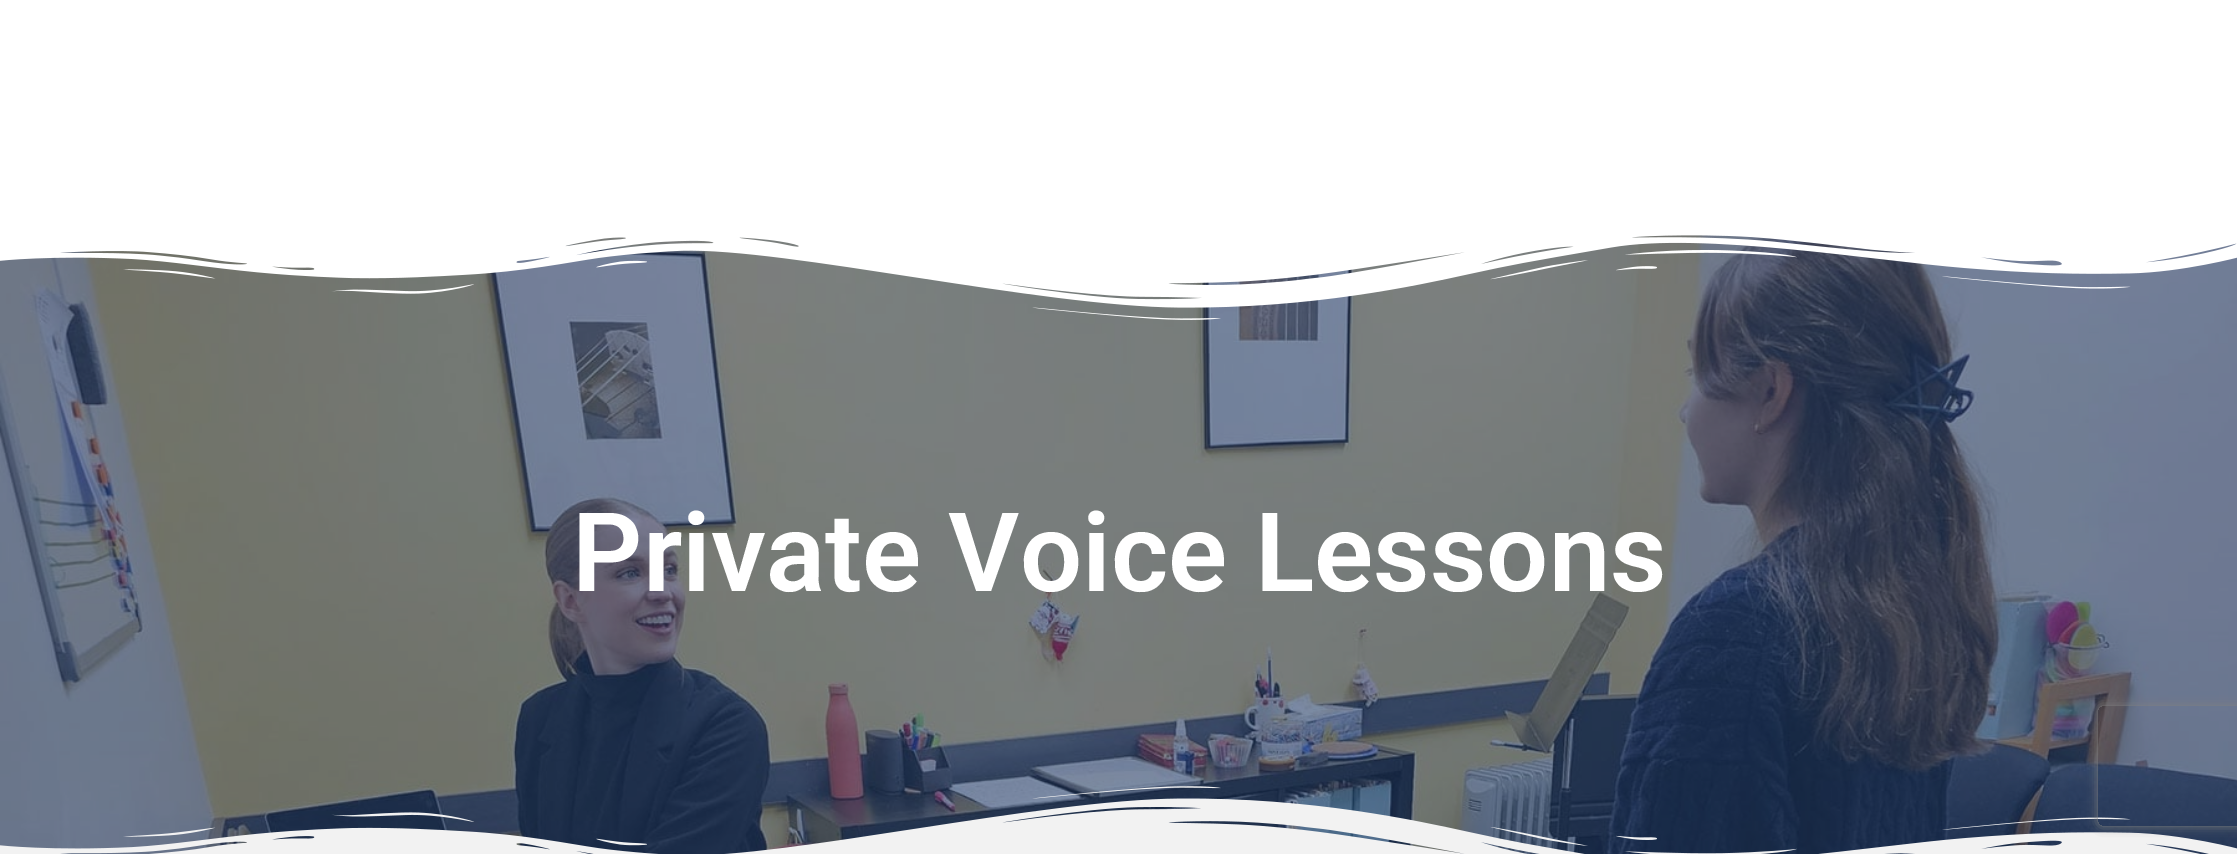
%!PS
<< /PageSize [2237 854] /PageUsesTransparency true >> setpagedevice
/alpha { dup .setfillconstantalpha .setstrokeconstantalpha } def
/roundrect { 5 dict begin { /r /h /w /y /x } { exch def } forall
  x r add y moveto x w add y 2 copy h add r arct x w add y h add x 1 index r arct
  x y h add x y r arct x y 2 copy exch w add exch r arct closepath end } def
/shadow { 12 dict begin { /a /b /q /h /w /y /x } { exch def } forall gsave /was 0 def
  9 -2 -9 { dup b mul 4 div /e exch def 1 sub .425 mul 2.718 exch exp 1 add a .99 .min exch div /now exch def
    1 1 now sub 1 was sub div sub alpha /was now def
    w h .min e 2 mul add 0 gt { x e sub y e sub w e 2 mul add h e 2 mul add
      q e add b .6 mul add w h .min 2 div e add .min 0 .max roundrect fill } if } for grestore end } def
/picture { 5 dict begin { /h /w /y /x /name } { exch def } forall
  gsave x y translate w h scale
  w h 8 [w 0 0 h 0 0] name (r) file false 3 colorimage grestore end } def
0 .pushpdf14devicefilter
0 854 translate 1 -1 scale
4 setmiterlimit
1 setgray
0 0 2237 854 rectfill
(img1.rgb) 0 235 2237 619 picture
(img2.rgb) 0 224 2237 96 picture
/Roboto-SemiBold [110 0 0 -110 0 0] selectfont
572 591 moveto (Private Voice Lessons) show
(img3.rgb) 0 786 2237 68 picture
gsave
newpath 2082 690 moveto 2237 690 lineto 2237 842 lineto 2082 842 lineto closepath 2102 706 moveto 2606 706 lineto 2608 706 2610 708 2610 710 curveto 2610 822 lineto 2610 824 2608 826 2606 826 curveto 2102 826 lineto 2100 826 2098 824 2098 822 curveto 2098 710 lineto 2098 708 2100 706 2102 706 curveto closepath eoclip newpath
0.502 setgray
2098 706 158 120 4 5 1 shadow
grestore
.poppdf14devicefilter showpage
